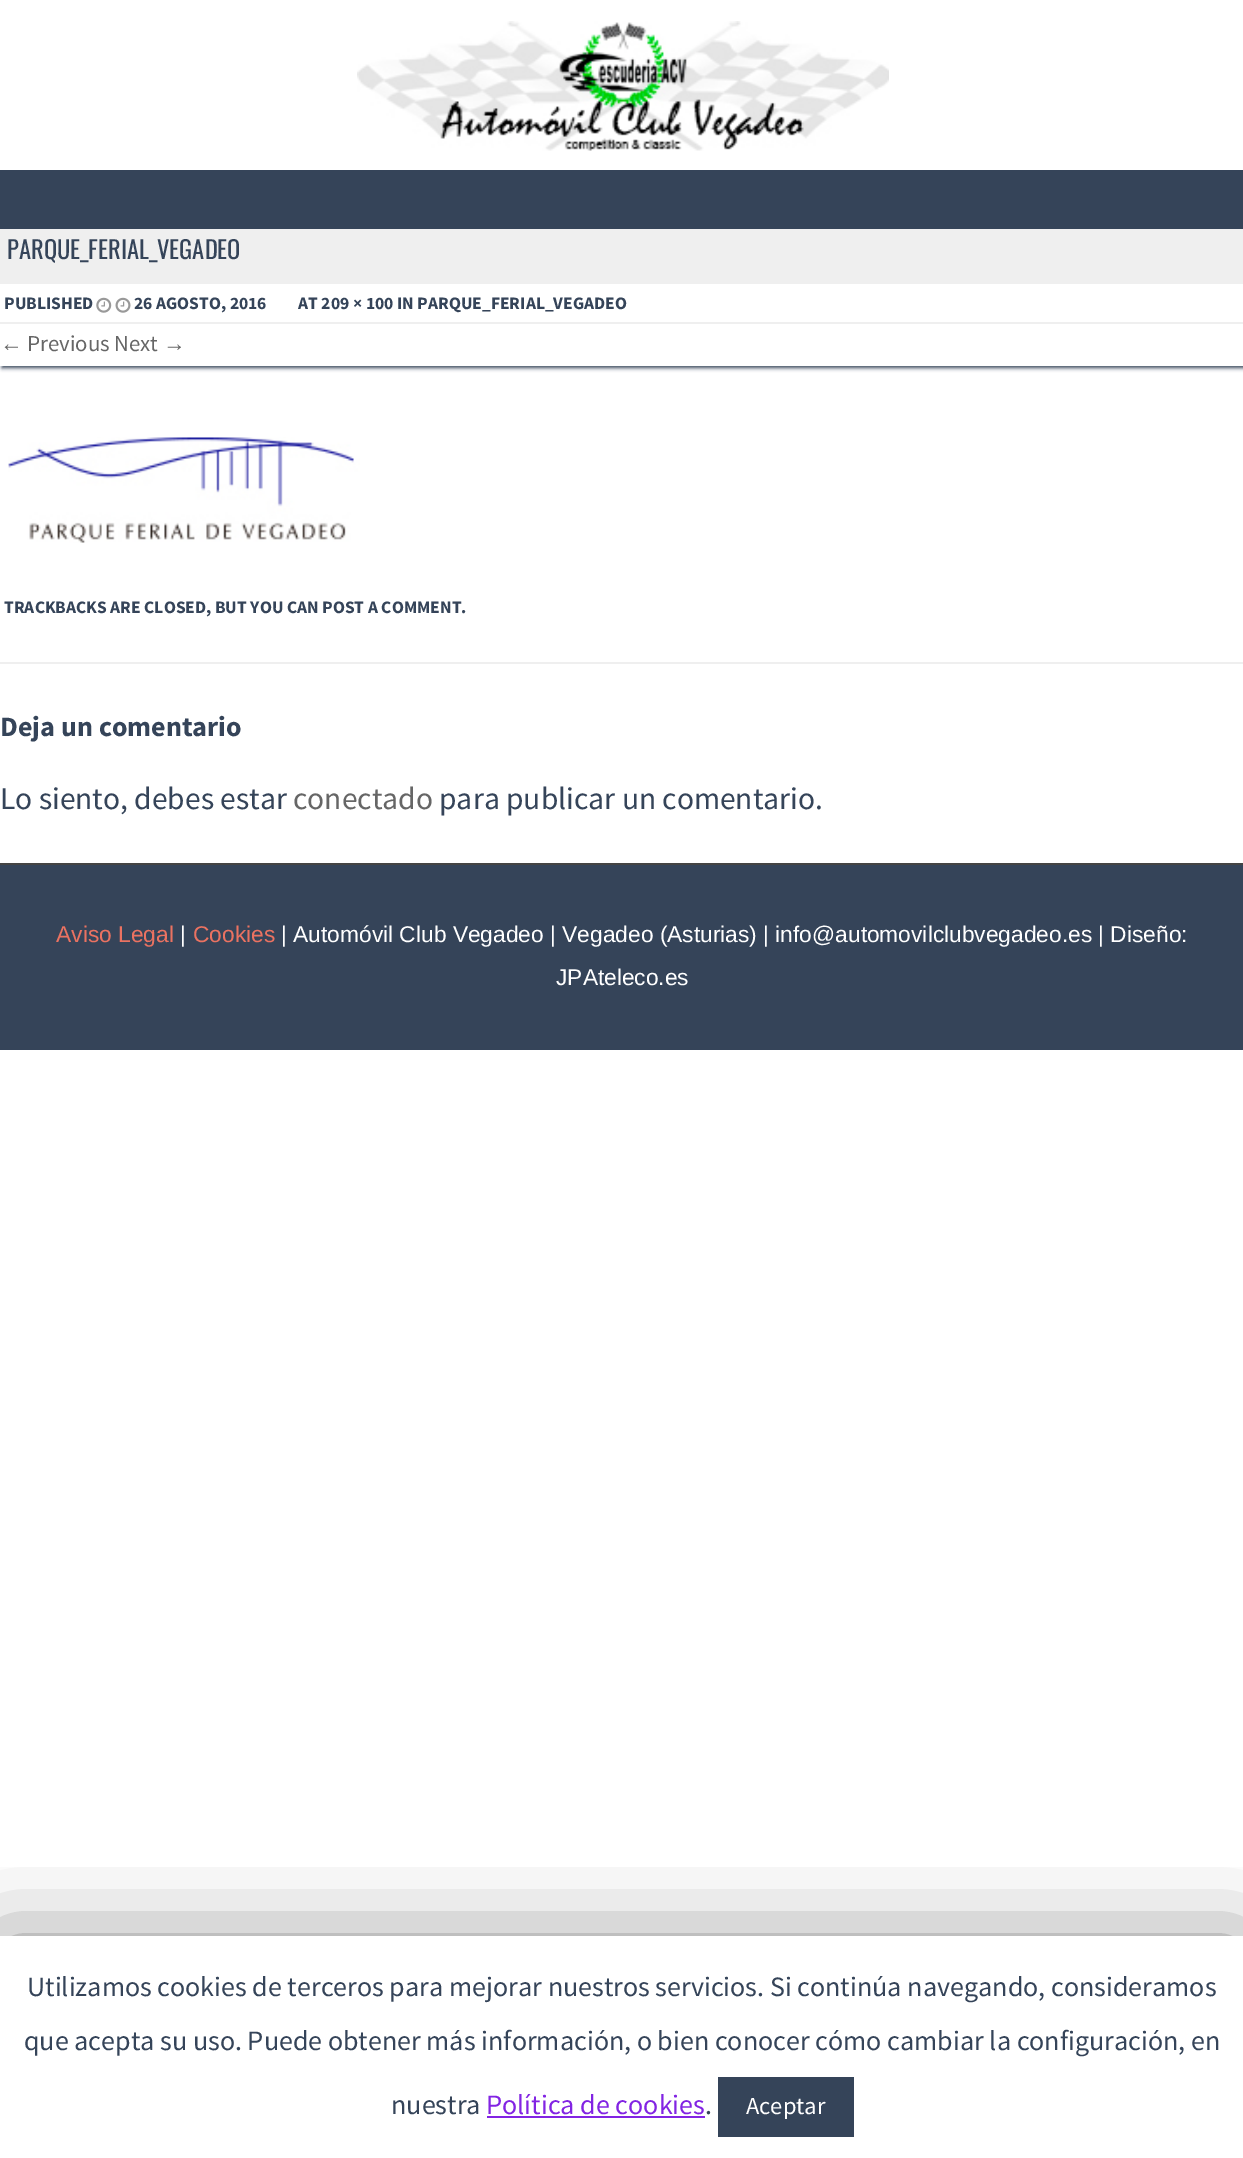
%!PS
<< /PageSize [1243 2158] /PageUsesTransparency true >> setpagedevice
/alpha { dup .setfillconstantalpha .setstrokeconstantalpha } def
/roundrect { 5 dict begin { /r /h /w /y /x } { exch def } forall
  x r add y moveto x w add y 2 copy h add r arct x w add y h add x 1 index r arct
  x y h add x y r arct x y 2 copy exch w add exch r arct closepath end } def
/shadow { 12 dict begin { /a /b /q /h /w /y /x } { exch def } forall gsave /was 0 def
  9 -2 -9 { dup b mul 4 div /e exch def 1 sub .425 mul 2.718 exch exp 1 add a .99 .min exch div /now exch def
    1 1 now sub 1 was sub div sub alpha /was now def
    w h .min e 2 mul add 0 gt { x e sub y e sub w e 2 mul add h e 2 mul add
      q e add b .6 mul add w h .min 2 div e add .min 0 .max roundrect fill } if } for grestore end } def
/picture { 5 dict begin { /h /w /y /x /name } { exch def } forall
  gsave x y translate w h scale
  w h 8 [w 0 0 h 0 0] name (r) file false 3 colorimage grestore end } def
0 .pushpdf14devicefilter
0 2158 translate 1 -1 scale
4 setmiterlimit
1 setgray
0 0 1243 2158 rectfill
(img1.rgb) 357 21 532 130 picture
0.208 0.267 0.349 setrgbcolor
0 170 1243 59 rectfill
0.937 setgray
0 662 1243 2 rectfill
gsave
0 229 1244 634 rectclip
0.208 0.267 0.345 setrgbcolor
2 217 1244 151 0 2 1 shadow
grestore
1 setgray
0 284 1243 82 rectfill
0.937 setgray
0 229 1243 55 rectfill
/Oswald-Regular [24.5 0 0 -24.5 0 0] selectfont
0.208 0.267 0.349 setrgbcolor
7 259 moveto (PARQUE_FERIAL_VEGADEO) show
0.937 setgray
0 322 1243 2 rectfill
/SourceSansPro-Bold [17.5 0 0 -17.5 0 0] selectfont
0.208 0.267 0.349 setrgbcolor
4 309 moveto (PUBLISHED) show
(img2.rgb) 96 297 16 16 picture
(img3.rgb) 115 297 16 16 picture
134 309 moveto (26 AGOSTO, 2016) show
298 309 moveto (AT 209 × 100 IN PARQUE_FERIAL_VEGADEO) show
/LiberationSans-Regular [22.75 0 0 -22.75 0 0] selectfont
0.4 setgray
0 351 moveto (←) show
/SourceSansPro-Regular [22.75 0 0 -22.75 0 0] selectfont
27 351 moveto (Previous Next) show
/LiberationSans-Regular [22.75 0 0 -22.75 0 0] selectfont
163 351 moveto (→) show
(img4.rgb) 8 437 352 106 picture
/SourceSansPro-Bold [17.5 0 0 -17.5 0 0] selectfont
0.208 0.267 0.349 setrgbcolor
4 613 moveto (TRACKBACKS ARE CLOSED, BUT YOU CAN POST A COMMENT.) show
/SourceSansPro-Bold [28 0 0 -28 0 0] selectfont
0 736 moveto (Deja un comentario) show
/SourceSansPro-Regular [31.5 0 0 -31.5 0 0] selectfont
0 809 moveto (Lo siento, debes estar) show
0.4 setgray
293 809 moveto (conectado) show
0.208 0.267 0.349 setrgbcolor
439 809 moveto (para publicar un comentario.) show
0 865 1243 185 rectfill
0.267 setgray
0 863 1243 2 rectfill
/LiberationSans-Regular [22.75 0 0 -22.75 0 0] selectfont
0.922 0.447 0.38 setrgbcolor
56 942 moveto (Aviso Legal) show
1 setgray
180 942 moveto (|) show
0.922 0.447 0.38 setrgbcolor
193 942 moveto (Cookies) show
1 setgray
281 942 moveto (| Automóvil Club Vegadeo | Vegadeo \(Asturias\) | info@automovilclubvegadeo.es | Diseño:) show
556 985 moveto (JPAteleco.es) show
gsave
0 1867 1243 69 rectclip
0 setgray
0 1944 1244 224 0 44 0.5 shadow
grestore
/SourceSansPro-Regular [28 0 0 -28 0 0] selectfont
0.208 0.267 0.349 setrgbcolor
27 1996 moveto (Utilizamos cookies de terceros para mejorar nuestros servicios. Si continúa navegando, consideramos) show
24 2050 moveto (que acepta su uso. Puede obtener más información, o bien conocer cómo cambiar la configuración, en) show
391 2114 moveto (nuestra) show
0.51 0.141 0.89 setrgbcolor
486 2114 moveto (Política de cookies) show
487 2116 218 2 rectfill
0.208 0.267 0.349 setrgbcolor
705 2114 moveto (.) show
718 2077 136 60 rectfill
/SourceSansPro-Regular [24.5 0 0 -24.5 0 0] selectfont
1 setgray
746 2114 moveto (Aceptar) show
.poppdf14devicefilter showpage
